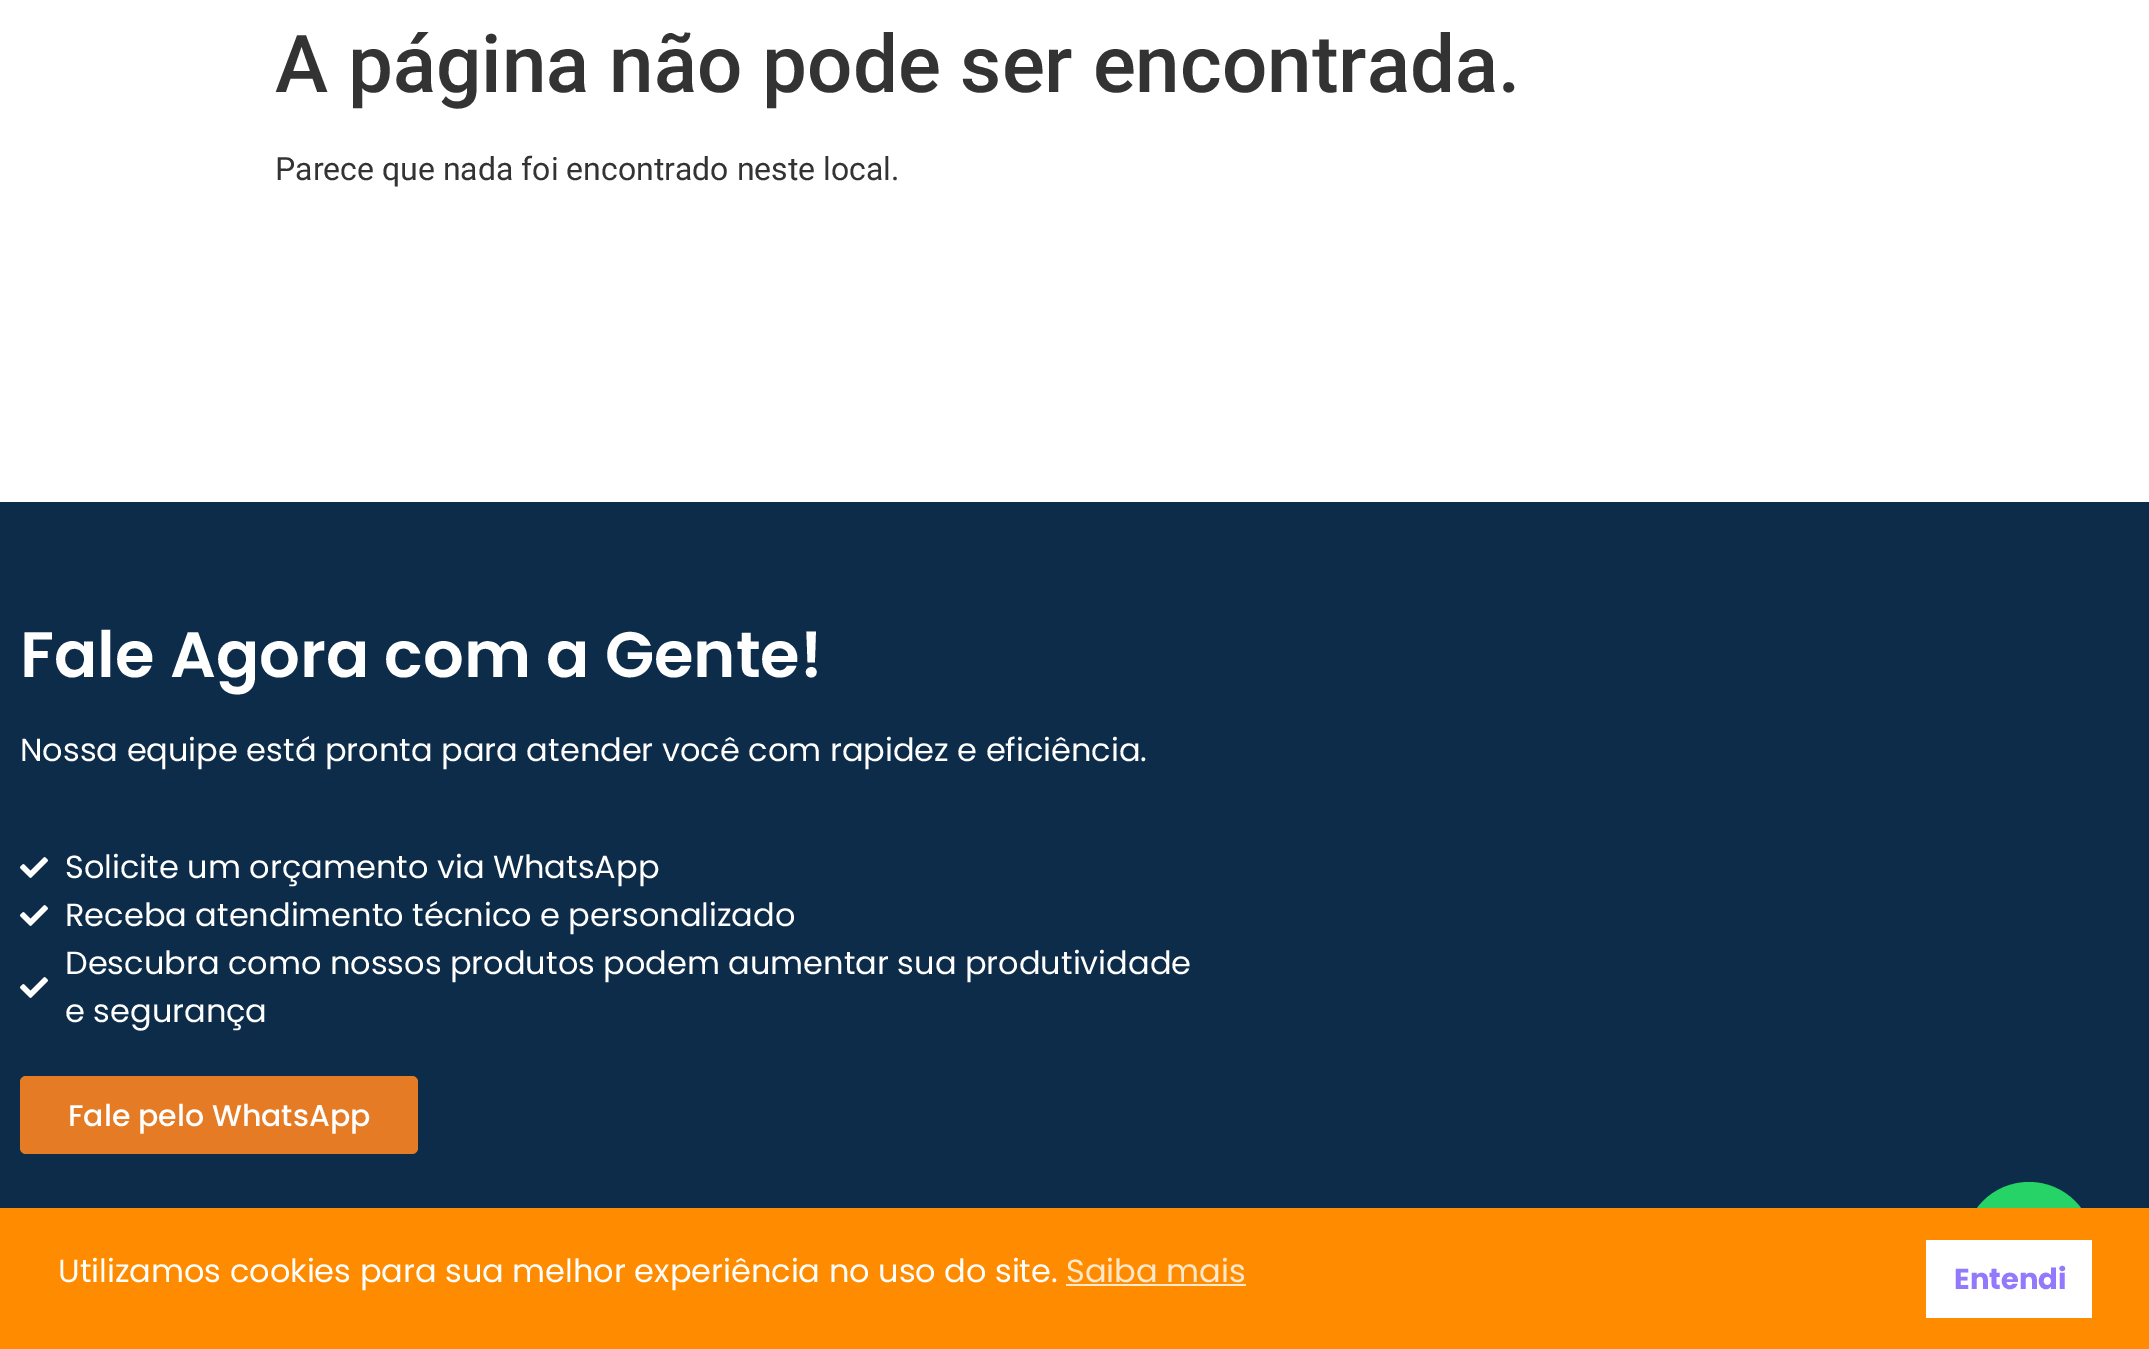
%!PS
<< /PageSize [2149 1349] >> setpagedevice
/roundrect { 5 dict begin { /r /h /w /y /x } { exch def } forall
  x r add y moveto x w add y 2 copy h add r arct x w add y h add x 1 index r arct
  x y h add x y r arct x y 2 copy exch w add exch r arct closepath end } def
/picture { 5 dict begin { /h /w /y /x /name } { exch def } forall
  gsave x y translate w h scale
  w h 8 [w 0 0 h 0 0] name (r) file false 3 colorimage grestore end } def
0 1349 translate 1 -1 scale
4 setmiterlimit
1 setgray
0 0 2149 1349 rectfill
/Roboto-Medium [80 0 0 -80 0 0] selectfont
0.2 setgray
275 92 moveto (A página não pode ser encontrada.) show
/Roboto-Regular [32 0 0 -32 0 0] selectfont
275 180 moveto (Parece que nada foi encontrado neste local.) show
0.047 0.173 0.29 setrgbcolor
0 502 2149 706 rectfill
/Poppins-SemiBold [64 0 0 -64 0 0] selectfont
1 setgray
20 677 moveto (Fale Agora com a Gente!) show
/Poppins-Regular [32 0 0 -32 0 0] selectfont
20 761 moveto (Nossa equipe está pronta para atender você com rapidez e eficiência.) show
(img1.rgb) 20 857 28 21 picture
65 878 moveto (Solicite um orçamento via WhatsApp) show
(img1.rgb) 20 905 28 21 picture
65 926 moveto (Receba atendimento técnico e personalizado) show
(img1.rgb) 20 977 28 21 picture
65 974 moveto (Descubra como nossos produtos podem aumentar sua produtividade) show
65 1022 moveto (e segurança) show
0.898 0.482 0.145 setrgbcolor
20 1076 398 78 6 roundrect fill
/Poppins-Medium [30 0 0 -30 0 0] selectfont
1 setgray
68 1126 moveto (Fale pelo WhatsApp) show
0.145 0.827 0.4 setrgbcolor
newpath 2029 1247 65 0 360 arc closepath fill
1 0.549 0 setrgbcolor
0 1208 2149 141 rectfill
/Poppins-Regular [32 0 0 -32 0 0] selectfont
1 setgray
58 1282 moveto (Utilizamos cookies para sua melhor experiência no uso do site.) show
1 0.91 0.8 setrgbcolor
1066 1282 moveto (Saiba mais) show
1066 1284 180 2 rectfill
1 setgray
1926 1240 166 78 rectfill
/Poppins-Bold [29 0 0 -29 0 0] selectfont
0.576 0.478 0.988 setrgbcolor
1954 1289 moveto (Entendi) show
showpage
